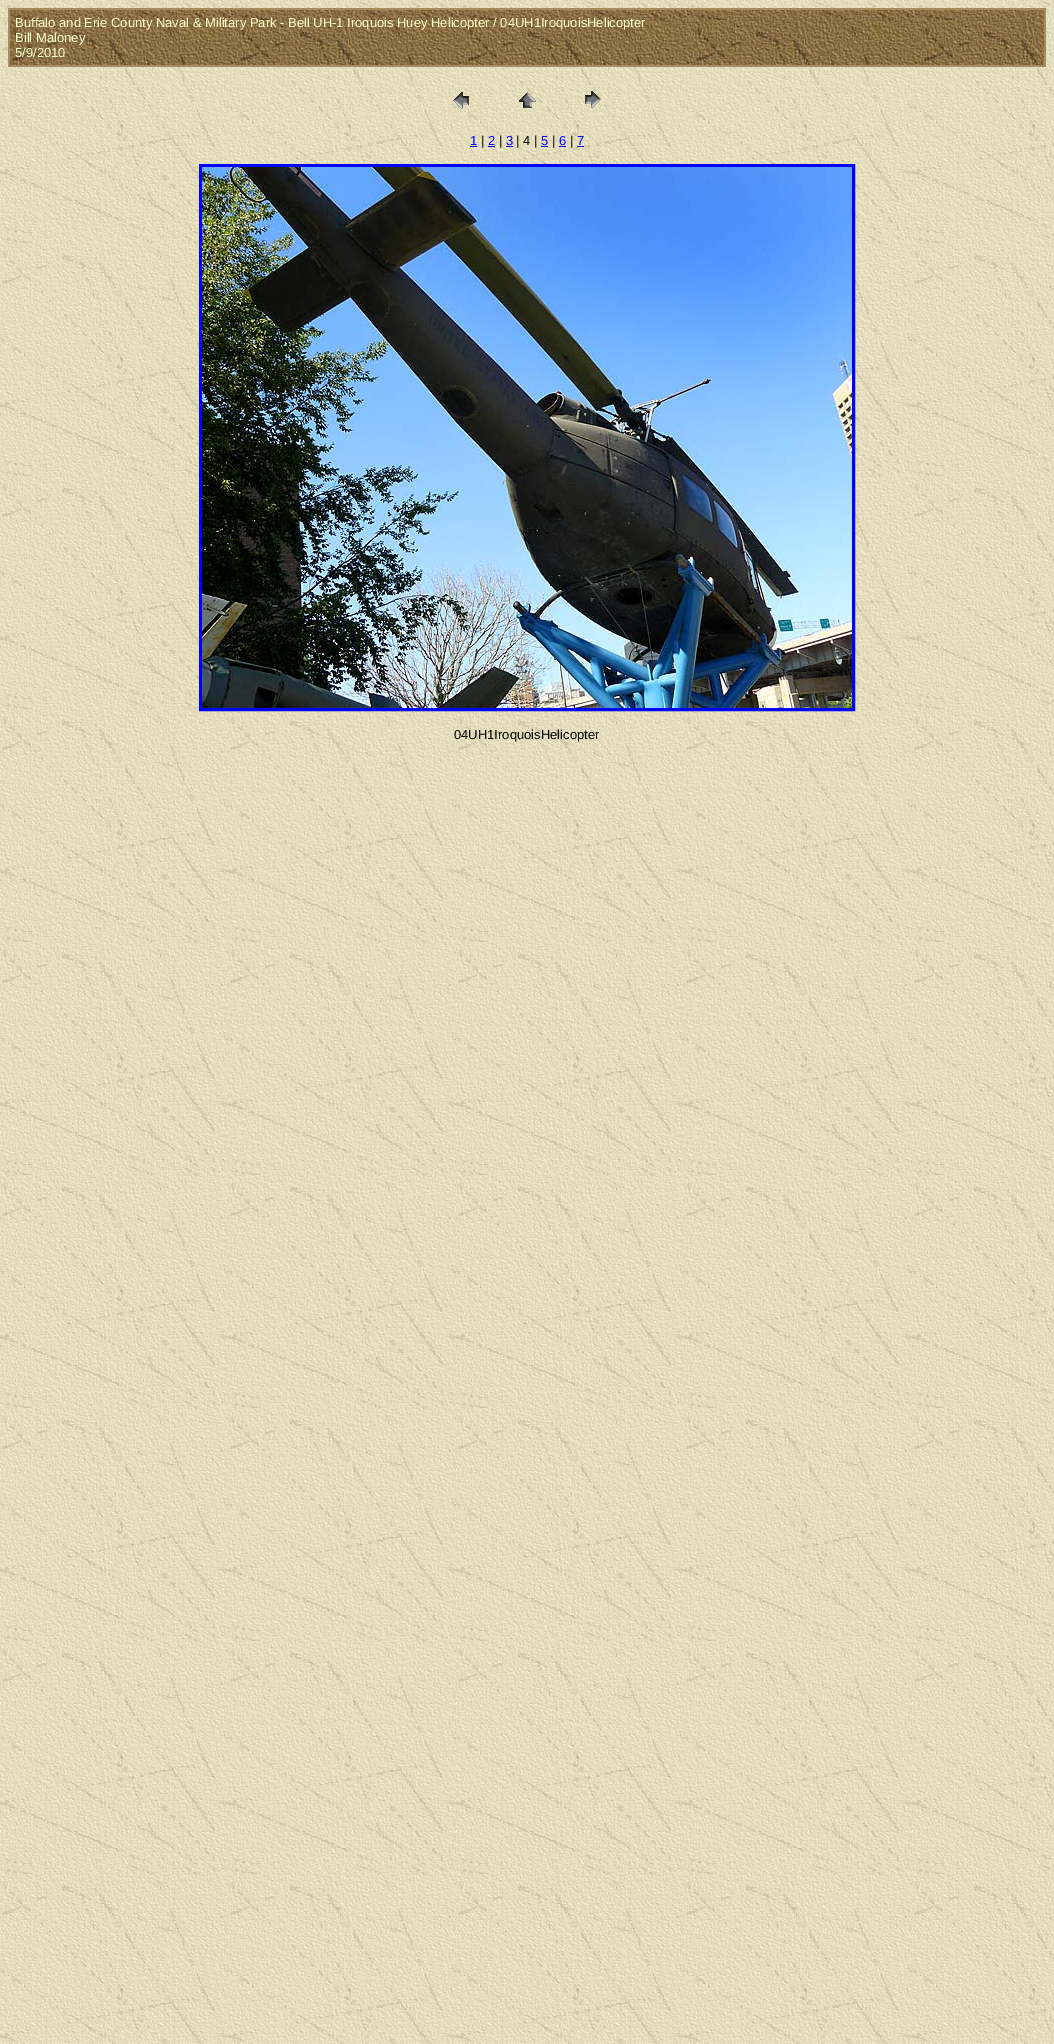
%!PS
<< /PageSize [1054 2044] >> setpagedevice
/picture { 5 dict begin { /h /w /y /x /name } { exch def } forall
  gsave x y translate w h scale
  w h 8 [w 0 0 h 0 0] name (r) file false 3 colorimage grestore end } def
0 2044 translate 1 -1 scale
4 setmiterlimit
1 setgray
0 0 1054 2044 rectfill
(img1.rgb) 0 0 1054 2044 picture
0.663 0.549 0.365 setrgbcolor
8 8 1038 59 rectfill
(img2.rgb) 10 10 1034 55 picture
/LiberationSans-Regular [13 0 0 -13 0 0] selectfont
1 1 0.8 setrgbcolor
15 27 moveto (Buffalo and Erie County Naval & Military Park - Bell UH-1 Iroquois Huey Helicopter / 04UH1IroquoisHelicopter) show
15 42 moveto (Bill Maloney) show
15 57 moveto (5/9/2010) show
(img3.rgb) 453 92 16 17 picture
(img4.rgb) 519 92 17 16 picture
(img5.rgb) 585 91 16 17 picture
0 0 1 setrgbcolor
470 145 moveto (1) show
470 146 7 1 rectfill
0 setgray
481 145 moveto (|) show
0 0 1 setrgbcolor
488 145 moveto (2) show
488 146 7 1 rectfill
0 setgray
499 145 moveto (|) show
0 0 1 setrgbcolor
506 145 moveto (3) show
506 146 7 1 rectfill
0 setgray
516 145 moveto (| 4 |) show
0 0 1 setrgbcolor
541 145 moveto (5) show
541 146 7 1 rectfill
0 setgray
552 145 moveto (|) show
0 0 1 setrgbcolor
559 145 moveto (6) show
559 146 7 1 rectfill
0 setgray
570 145 moveto (|) show
0 0 1 setrgbcolor
577 145 moveto (7) show
577 146 7 1 rectfill
3 setlinewidth
200.5 165.5 653 544 rectstroke
(img6.rgb) 202 167 650 541 picture
0 setgray
454 739 moveto (04UH1IroquoisHelicopter) show
showpage
